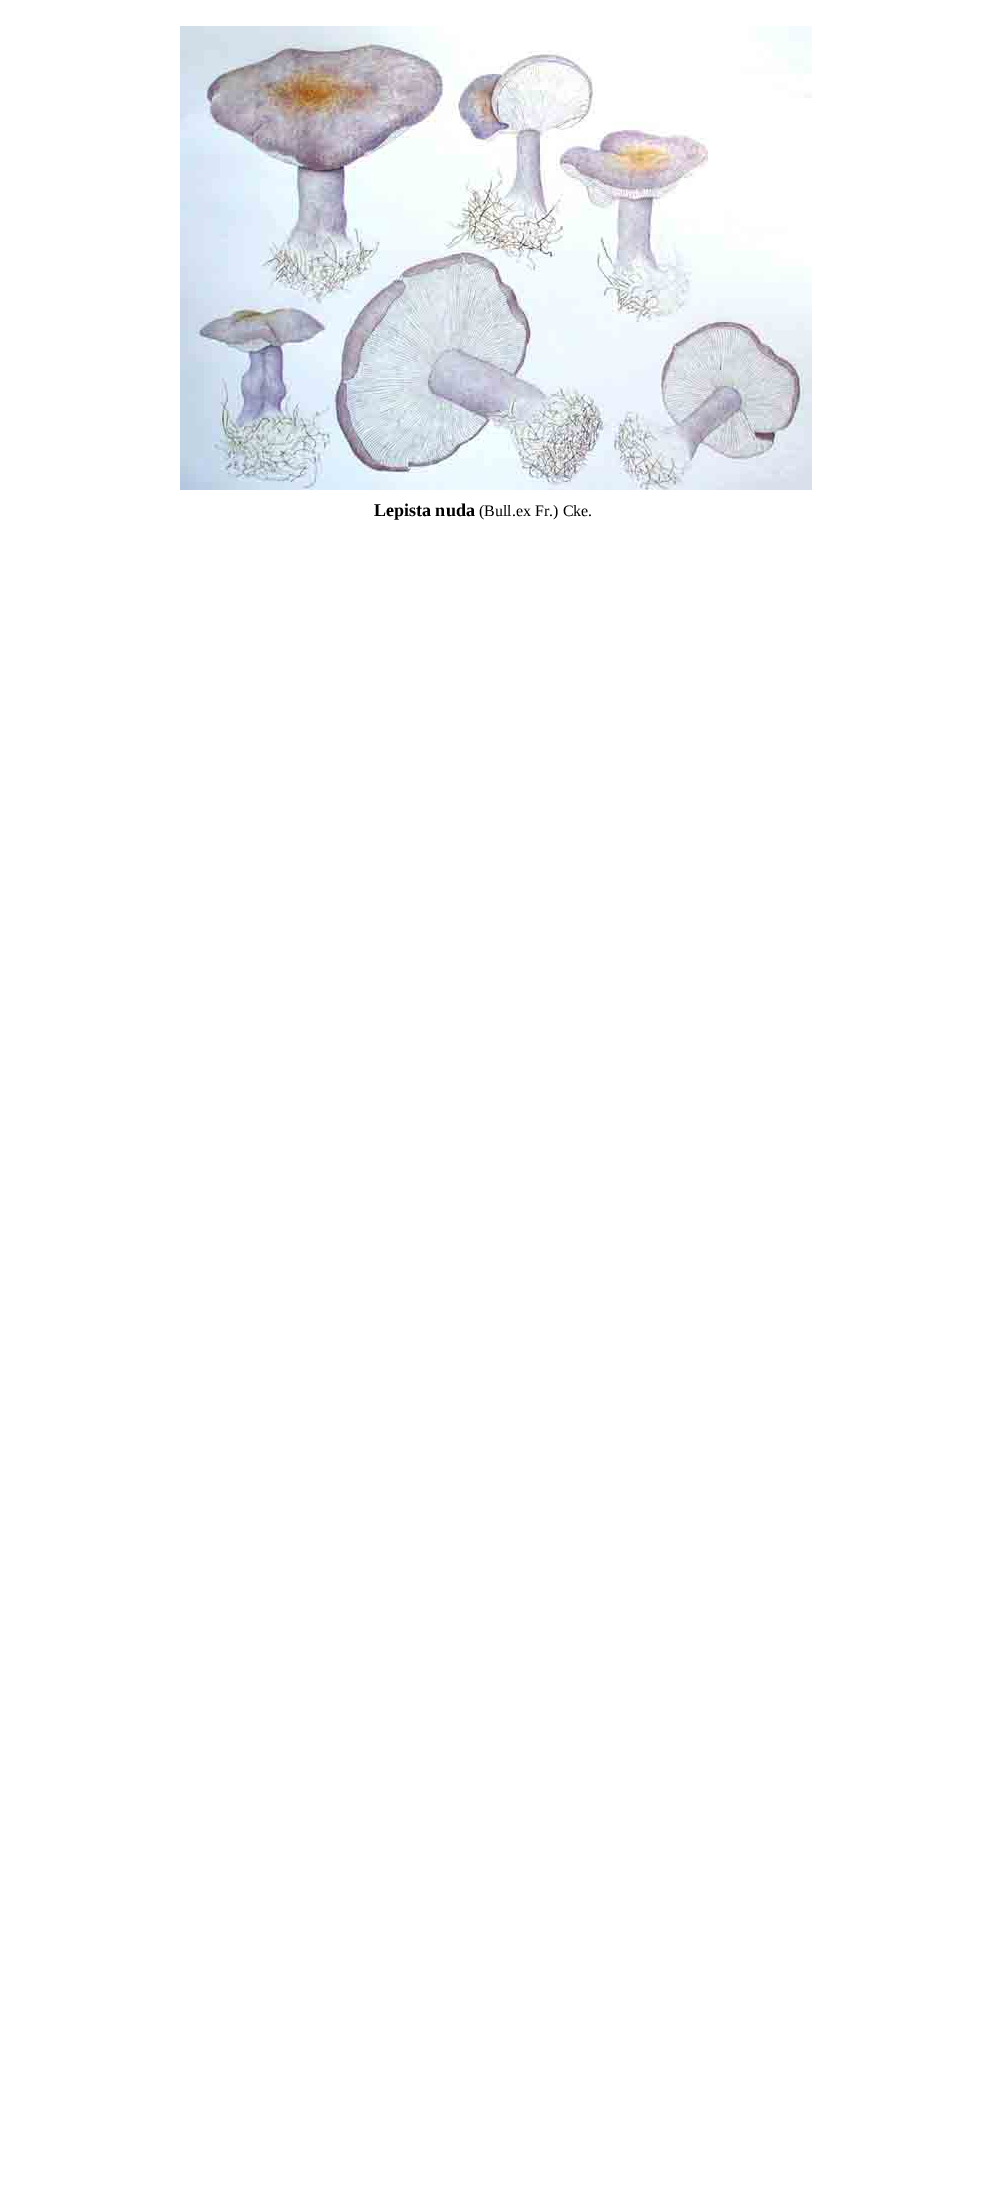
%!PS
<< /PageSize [992 2186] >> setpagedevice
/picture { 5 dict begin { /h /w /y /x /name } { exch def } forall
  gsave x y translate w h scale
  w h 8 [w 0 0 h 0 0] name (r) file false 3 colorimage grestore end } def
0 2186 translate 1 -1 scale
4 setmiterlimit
1 setgray
0 0 992 2186 rectfill
(img1.rgb) 180 26 632 464 picture
/LiberationSerif-Bold [18 0 0 -18 0 0] selectfont
0 setgray
374 516 moveto (Lepista nuda) show
/LiberationSerif-Regular [16 0 0 -16 0 0] selectfont
479 516 moveto (\(Bull.ex Fr.\) Cke.) show
showpage
